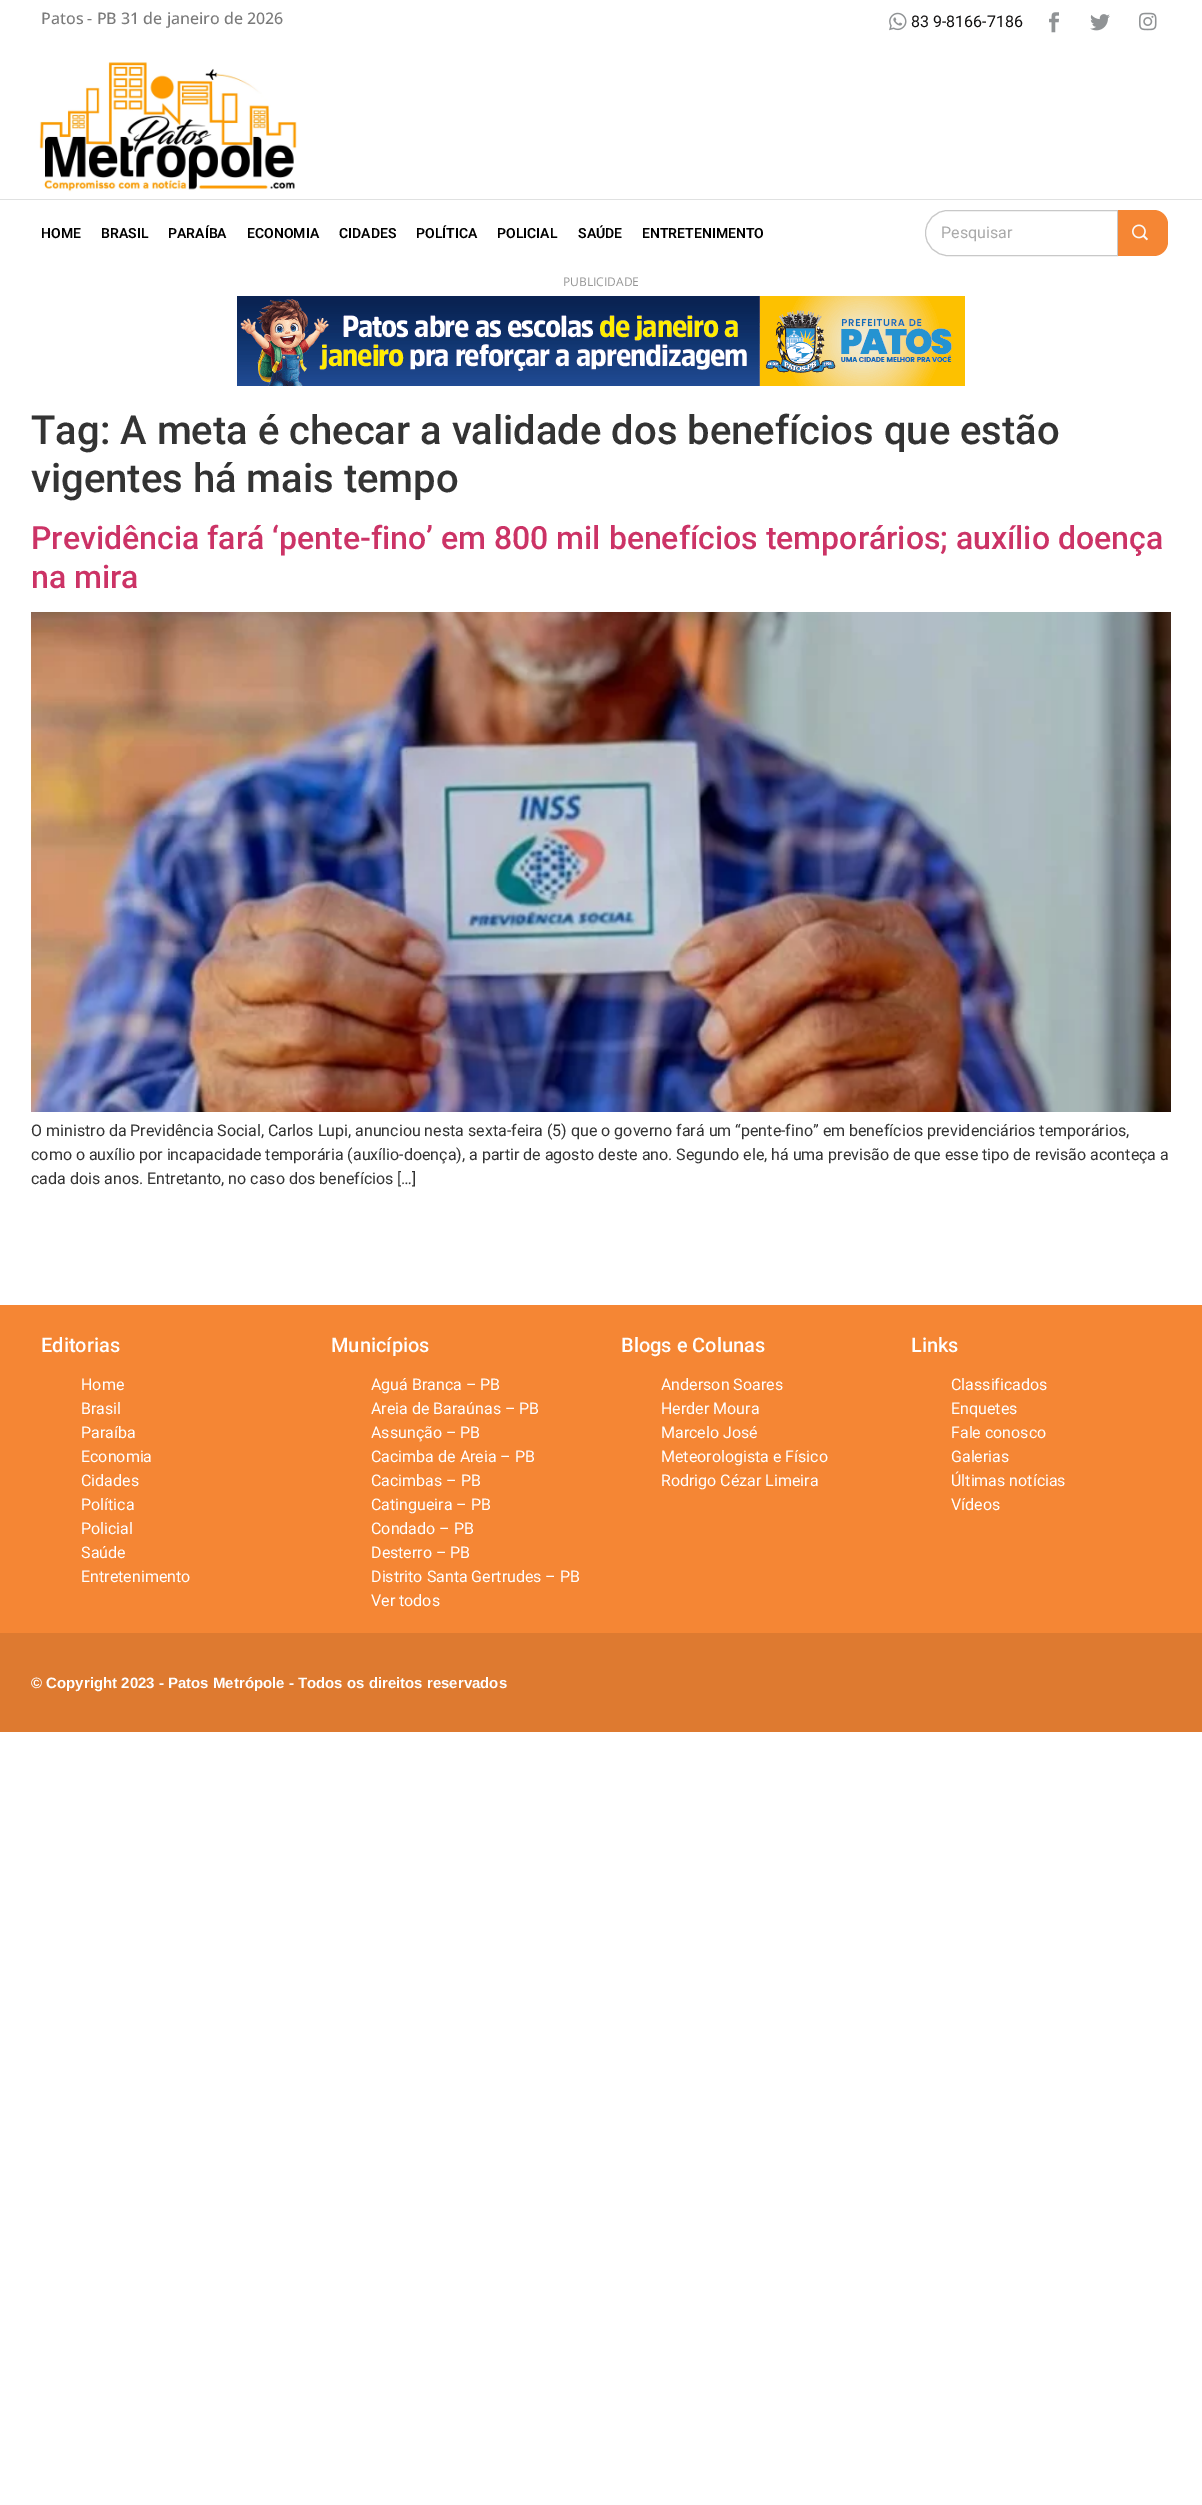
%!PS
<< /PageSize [1202 2505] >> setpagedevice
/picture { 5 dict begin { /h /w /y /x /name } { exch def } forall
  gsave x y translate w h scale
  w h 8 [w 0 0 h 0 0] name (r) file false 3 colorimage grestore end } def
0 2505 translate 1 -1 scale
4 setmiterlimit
1 setgray
0 0 1202 2505 rectfill
/OpenSans-Medium [16 0 0 -16 0 0] selectfont
0.478 setgray
41 24 moveto (Patos - PB 31 de janeiro de 2026) show
(img1.rgb) 889 12 18 19 picture
/Roboto-Regular [16 0 0 -16 0 0] selectfont
0.067 0.063 0.063 setrgbcolor
911 27 moveto (83 9-8166-7186) show
(img2.rgb) 1049 12 10 21 picture
(img3.rgb) 1090 14 20 17 picture
(img4.rgb) 1139 12 18 19 picture
0.878 0.882 0.882 setrgbcolor
0 199 1202 1 rectfill
(img5.rgb) 39 62 258 130 picture
/Roboto-SemiBold [14 0 0 -14 0 0] selectfont
0 setgray
41 238 moveto (HOME) show
101 238 moveto (BRASIL) show
168 238 moveto (PARAÍBA) show
247 238 moveto (ECONOMIA) show
339 238 moveto (CIDADES) show
416 238 moveto (POLÍTICA) show
497 238 moveto (POLICIAL) show
578 238 moveto (SAÚDE) show
642 238 moveto (ENTRETENIMENTO) show
0.784 setgray
newpath 948 210.5 moveto 1117.5 210.5 lineto 1117.5 255.5 lineto 948 255.5 lineto 935.5 255.5 925.5 245.5 925.5 233 curveto 925.5 220.5 935.5 210.5 948 210.5 curveto closepath stroke
/Roboto-Regular [16 0 0 -16 0 0] selectfont
0.667 setgray
941 238 moveto (Pesquisar) show
0.961 0.525 0.204 setrgbcolor
newpath 1118 210 moveto 1154 210 lineto 1161.5 210 1168 216.5 1168 224 curveto 1168 242 lineto 1168 249.5 1161.5 256 1154 256 curveto 1118 256 lineto closepath fill
(img6.rgb) 1132 224 16 17 picture
/OpenSans-Regular [12 0 0 -12 0 0] selectfont
0.584 setgray
563 286 moveto (PUBLICIDADE) show
(img7.rgb) 237 296 728 90 picture
/Roboto-Medium [40 0 0 -40 0 0] selectfont
0.2 setgray
31 444 moveto (Tag: A meta é checar a validade dos benefícios que estão) show
31 492 moveto (vigentes há mais tempo) show
/Roboto-Medium [32 0 0 -32 0 0] selectfont
0.8 0.2 0.4 setrgbcolor
31 549 moveto (Previdência fará ‘pente-fino’ em 800 mil benefícios temporários; auxílio doença) show
31 588 moveto (na mira) show
(img8.rgb) 31 612 1140 500 picture
/Roboto-Regular [16 0 0 -16 0 0] selectfont
0.2 setgray
31 1136 moveto (O ministro da Previdência Social, Carlos Lupi, anunciou nesta sexta-feira \(5\) que o governo fará um “pente-fino” em benefícios previdenciários temporários,) show
31 1160 moveto (como o auxílio por incapacidade temporária \(auxílio-doença\), a partir de agosto deste ano. Segundo ele, há uma previsão de que esse tipo de revisão aconteça a) show
31 1184 moveto (cada dois anos. Entretanto, no caso dos benefícios […]) show
0.961 0.525 0.204 setrgbcolor
0 1305 1202 328 rectfill
/Roboto-Medium [20 0 0 -20 0 0] selectfont
1 setgray
41 1352 moveto (Editorias) show
/Roboto-Regular [16 0 0 -16 0 0] selectfont
81 1390 moveto (Home) show
81 1414 moveto (Brasil) show
81 1438 moveto (Paraíba) show
81 1462 moveto (Economia) show
81 1486 moveto (Cidades) show
81 1510 moveto (Política) show
81 1534 moveto (Policial) show
81 1558 moveto (Saúde) show
81 1582 moveto (Entretenimento) show
/Roboto-Medium [20 0 0 -20 0 0] selectfont
331 1352 moveto (Municípios) show
/Roboto-Regular [16 0 0 -16 0 0] selectfont
371 1390 moveto (Aguá Branca – PB) show
371 1414 moveto (Areia de Baraúnas – PB) show
371 1438 moveto (Assunção – PB) show
371 1462 moveto (Cacimba de Areia – PB) show
371 1486 moveto (Cacimbas – PB) show
371 1510 moveto (Catingueira – PB) show
371 1534 moveto (Condado – PB) show
371 1558 moveto (Desterro – PB) show
371 1582 moveto (Distrito Santa Gertrudes – PB) show
371 1606 moveto (Ver todos) show
/Roboto-Medium [20 0 0 -20 0 0] selectfont
621 1352 moveto (Blogs e Colunas) show
/Roboto-Regular [16 0 0 -16 0 0] selectfont
661 1390 moveto (Anderson Soares) show
661 1414 moveto (Herder Moura) show
661 1438 moveto (Marcelo José) show
661 1462 moveto (Meteorologista e Físico) show
661 1486 moveto (Rodrigo Cézar Limeira) show
/Roboto-Medium [20 0 0 -20 0 0] selectfont
911 1352 moveto (Links) show
/Roboto-Regular [16 0 0 -16 0 0] selectfont
951 1390 moveto (Classificados) show
951 1414 moveto (Enquetes) show
951 1438 moveto (Fale conosco) show
951 1462 moveto (Galerias) show
951 1486 moveto (Últimas notícias) show
951 1510 moveto (Vídeos) show
0.871 0.478 0.188 setrgbcolor
0 1633 1202 99 rectfill
/LiberationSans-Bold [15 0 0 -15 0 0] selectfont
1 setgray
31 1688 moveto (© Copyright 2023 - Patos Metrópole - Todos os direitos reservados) show
showpage
